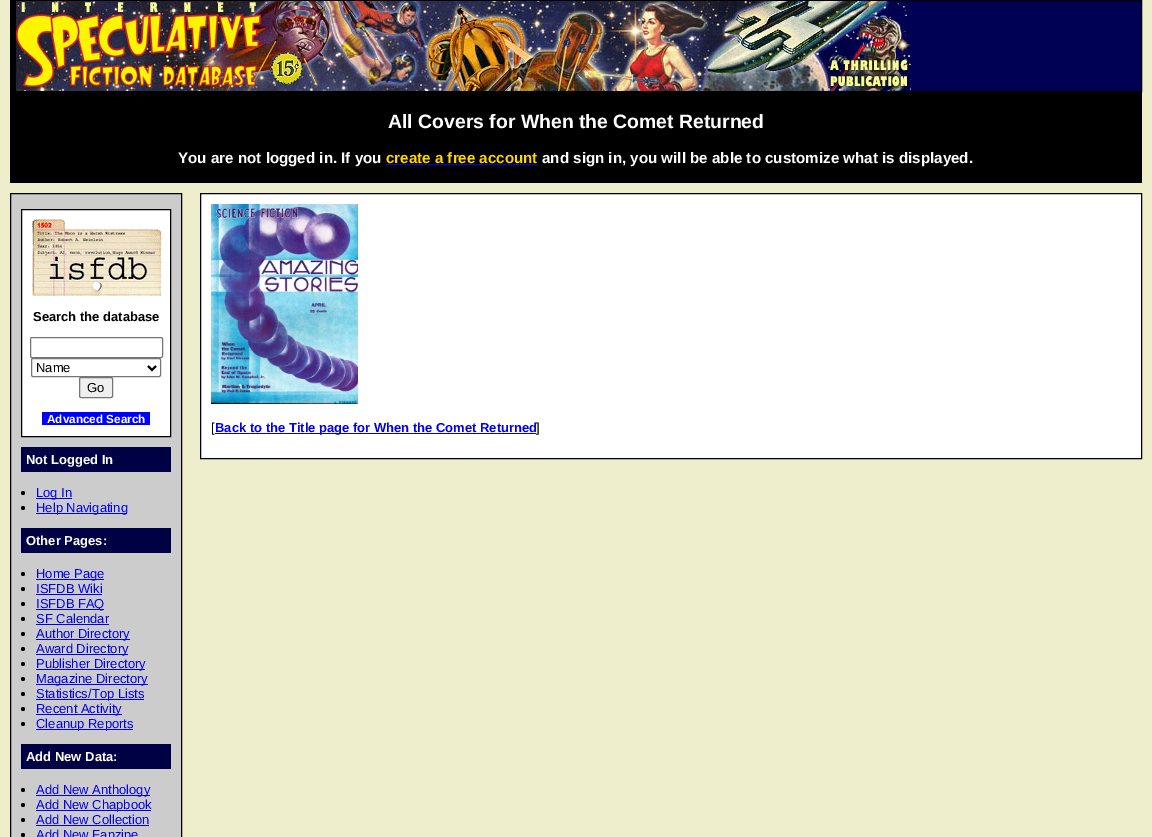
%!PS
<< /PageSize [1152 837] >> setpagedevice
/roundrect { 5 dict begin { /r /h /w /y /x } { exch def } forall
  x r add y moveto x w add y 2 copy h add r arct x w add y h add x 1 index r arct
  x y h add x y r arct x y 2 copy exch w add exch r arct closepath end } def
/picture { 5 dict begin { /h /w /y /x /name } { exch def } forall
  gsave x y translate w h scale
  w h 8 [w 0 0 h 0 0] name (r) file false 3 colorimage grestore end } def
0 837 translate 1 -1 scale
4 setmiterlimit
0.933 0.933 0.8 setrgbcolor
0 0 1152 837 rectfill
0 0 0.333 setrgbcolor
911 1 230 90 rectfill
0 setgray
10.5 0.5 1131 91 rectstroke
(img1.rgb) 11 1 900 90 picture
10 92 1132 91 rectfill
/LiberationSans-Bold [19.4 0 0 -19.4 0 0] selectfont
1 setgray
388 128 moveto (All Covers for When the Comet Returned) show
/LiberationSans-Bold [15.15 0 0 -15.15 0 0] selectfont
178 163 moveto (You are not logged in. If you) show
1 0.843 0 setrgbcolor
386 163 moveto (create a free account) show
0 0 0.933 setrgbcolor
386 164 152 1 rectfill
1 setgray
542 163 moveto (and sign in, you will be able to customize what is displayed.) show
0.8 setgray
newpath 10.5 193.5 moveto 181.5 193.5 lineto 181.5 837.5 lineto 10.5 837.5 lineto closepath gsave fill grestore
0 setgray
stroke
1 setgray
newpath 21.5 209.5 moveto 170.5 209.5 lineto 170.5 436.5 lineto 21.5 436.5 lineto closepath gsave fill grestore
0 setgray
stroke
(img2.rgb) 32 219 130 77 picture
/LiberationSans-Bold [13 0 0 -13 0 0] selectfont
33 321 moveto (Search the database) show
0.463 setgray
30.5 337.5 132 20 1.5 roundrect stroke
31.5 358.5 129 18 1.5 roundrect stroke
0 setgray
2 setlinewidth
newpath 148 366 moveto 152 370 lineto 156 366 lineto stroke
/LiberationSans-Regular [13 0 0 -13 0 0] selectfont
36 372 moveto (Name) show
0.937 setgray
79.5 377.5 33 20 1.5 roundrect gsave fill grestore
0.463 setgray
1 setlinewidth
stroke
0 setgray
87 392 moveto (Go) show
0 0 1 setrgbcolor
42 412 108 13 rectfill
/LiberationSans-Bold [11.75 0 0 -11.75 0 0] selectfont
1 setgray
47 423 moveto (Advanced Search) show
0 0 0.267 setrgbcolor
21 447 150 25 rectfill
/LiberationSans-Bold [13 0 0 -13 0 0] selectfont
1 setgray
26 464 moveto (Not Logged In) show
0 setgray
newpath 23 493 2 0 360 arc closepath fill
0 0 0.933 setrgbcolor
36 498 36 1 rectfill
/LiberationSans-Regular [13 0 0 -13 0 0] selectfont
36 497 moveto (Log In) show
0 setgray
newpath 23 508 2 0 360 arc closepath fill
0 0 0.933 setrgbcolor
36 513 91 1 rectfill
36 512 moveto (Help Navigating) show
0 0 0.267 setrgbcolor
21 528 150 25 rectfill
/LiberationSans-Bold [13 0 0 -13 0 0] selectfont
1 setgray
26 545 moveto (Other Pages:) show
0 setgray
newpath 23 574 2 0 360 arc closepath fill
0 0 0.933 setrgbcolor
36 579 68 1 rectfill
/LiberationSans-Regular [13 0 0 -13 0 0] selectfont
36 578 moveto (Home Page) show
0 setgray
newpath 23 589 2 0 360 arc closepath fill
0 0 0.933 setrgbcolor
36 593 moveto (ISFDB Wiki) show
36 594 66 1 rectfill
0 setgray
newpath 23 604 2 0 360 arc closepath fill
0 0 0.933 setrgbcolor
36 609 68 1 rectfill
36 608 moveto (ISFDB FAQ) show
0 setgray
newpath 23 619 2 0 360 arc closepath fill
0 0 0.933 setrgbcolor
36 623 moveto (SF Calendar) show
36 624 73 1 rectfill
0 setgray
newpath 23 634 2 0 360 arc closepath fill
0 0 0.933 setrgbcolor
36 639 94 1 rectfill
36 638 moveto (Author Directory) show
0 setgray
newpath 23 649 2 0 360 arc closepath fill
0 0 0.933 setrgbcolor
36 654 92 1 rectfill
36 653 moveto (Award Directory) show
0 setgray
newpath 23 664 2 0 360 arc closepath fill
0 0 0.933 setrgbcolor
36 669 109 1 rectfill
36 668 moveto (Publisher Directory) show
0 setgray
newpath 23 679 2 0 360 arc closepath fill
0 0 0.933 setrgbcolor
36 684 112 1 rectfill
36 683 moveto (Magazine Directory) show
0 setgray
newpath 23 694 2 0 360 arc closepath fill
0 0 0.933 setrgbcolor
36 699 108 1 rectfill
36 698 moveto (Statistics/Top Lists) show
0 setgray
newpath 23 709 2 0 360 arc closepath fill
0 0 0.933 setrgbcolor
36 714 86 1 rectfill
36 713 moveto (Recent Activity) show
0 setgray
newpath 23 724 2 0 360 arc closepath fill
0 0 0.933 setrgbcolor
36 729 97 1 rectfill
36 728 moveto (Cleanup Reports) show
0 0 0.267 setrgbcolor
21 744 150 25 rectfill
/LiberationSans-Bold [13 0 0 -13 0 0] selectfont
1 setgray
26 761 moveto (Add New Data:) show
0 setgray
newpath 23 790 2 0 360 arc closepath fill
0 0 0.933 setrgbcolor
36 795 114 1 rectfill
/LiberationSans-Regular [13 0 0 -13 0 0] selectfont
36 794 moveto (Add New Anthology) show
0 setgray
newpath 23 805 2 0 360 arc closepath fill
0 0 0.933 setrgbcolor
36 810 115 1 rectfill
36 809 moveto (Add New Chapbook) show
0 setgray
newpath 23 820 2 0 360 arc closepath fill
0 0 0.933 setrgbcolor
36 824 moveto (Add New Collection) show
36 825 113 1 rectfill
0 setgray
newpath 23 835 2 0 360 arc closepath fill
0 0 0.933 setrgbcolor
36 839 moveto (Add New Fanzine) show
1 setgray
newpath 200.5 193.5 moveto 1141.5 193.5 lineto 1141.5 458.5 lineto 200.5 458.5 lineto closepath gsave fill grestore
0 setgray
stroke
(img3.rgb) 211 204 147 200 picture
211 432 moveto ([) show
0 0 0.933 setrgbcolor
215 433 321 1 rectfill
/LiberationSans-Bold [13 0 0 -13 0 0] selectfont
215 432 moveto (Back to the Title page for When the Comet Returned) show
/LiberationSans-Regular [13 0 0 -13 0 0] selectfont
0 setgray
536 432 moveto (]) show
showpage
